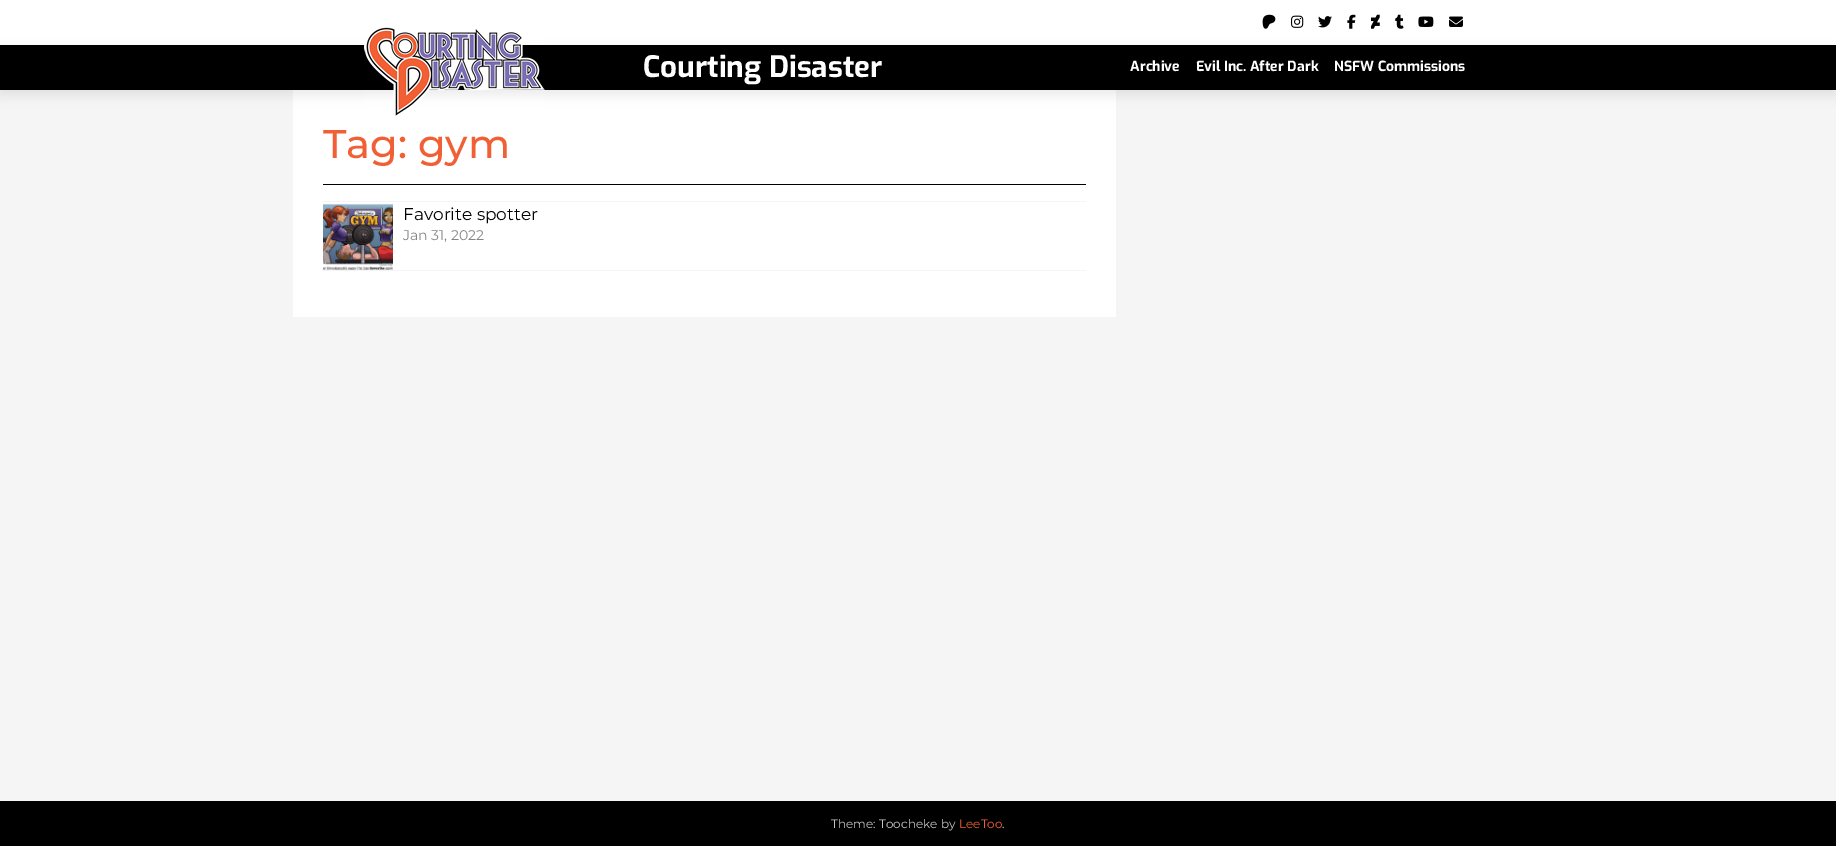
%!PS
<< /PageSize [1836 846] /PageUsesTransparency true >> setpagedevice
/alpha { dup .setfillconstantalpha .setstrokeconstantalpha } def
/roundrect { 5 dict begin { /r /h /w /y /x } { exch def } forall
  x r add y moveto x w add y 2 copy h add r arct x w add y h add x 1 index r arct
  x y h add x y r arct x y 2 copy exch w add exch r arct closepath end } def
/shadow { 12 dict begin { /a /b /q /h /w /y /x } { exch def } forall gsave /was 0 def
  9 -2 -9 { dup b mul 4 div /e exch def 1 sub .425 mul 2.718 exch exp 1 add a .99 .min exch div /now exch def
    1 1 now sub 1 was sub div sub alpha /was now def
    w h .min e 2 mul add 0 gt { x e sub y e sub w e 2 mul add h e 2 mul add
      q e add b .6 mul add w h .min 2 div e add .min 0 .max roundrect fill } if } for grestore end } def
/picture { 5 dict begin { /h /w /y /x /name } { exch def } forall
  gsave x y translate w h scale
  w h 8 [w 0 0 h 0 0] name (r) file false 3 colorimage grestore end } def
0 .pushpdf14devicefilter
0 846 translate 1 -1 scale
4 setmiterlimit
0.961 setgray
0 0 1836 846 rectfill
1 setgray
0 0 1836 45 rectfill
(img1.rgb) 1262 14 14 15 picture
(img2.rgb) 1291 15 13 13 picture
(img3.rgb) 1318 16 14 12 picture
(img4.rgb) 1347 14 9 15 picture
(img5.rgb) 1371 14 9 15 picture
(img6.rgb) 1395 14 9 15 picture
(img7.rgb) 1418 16 16 11 picture
(img8.rgb) 1449 16 14 11 picture
293 90 823 227 rectfill
0.196 setgray
0 50 1836 45 0 5.5 0.1 shadow
0 setgray
0 45 1836 45 rectfill
(img9.rgb) 364 27 181 89 picture
/Exo-Bold [29.5 0 0 -29.5 0 0] selectfont
1 setgray
643 77 moveto (Courting Disaster) show
/Exo-Bold [14 0 0 -14 0 0] selectfont
1130 71 moveto (Archive) show
1196 71 moveto (Evil Inc. After Dark) show
1334 71 moveto (NSFW Commissions) show
/Montserrat-Medium [40 0 0 -40 0 0] selectfont
0.945 0.373 0.204 setrgbcolor
323 158 moveto (Tag: gym) show
0 setgray
323 184 763 1 rectfill
0.961 setgray
323 201 763 1 rectfill
323 270 763 1 rectfill
(img10.rgb) 323 203 70 67 picture
/Montserrat-Regular [17 0 0 -17 0 0] selectfont
0 setgray
403 220 moveto (Favorite spotter) show
/Montserrat-Regular [14 0 0 -14 0 0] selectfont
0.518 setgray
403 240 moveto (Jan 31, 2022) show
0 setgray
0 801 1836 45 rectfill
/Montserrat-Regular [12 0 0 -12 0 0] selectfont
0.773 setgray
831 828 moveto (Theme: Toocheke by) show
0.945 0.373 0.204 setrgbcolor
959 828 moveto (LeeToo) show
0.773 setgray
1002 828 moveto (.) show
.poppdf14devicefilter showpage
